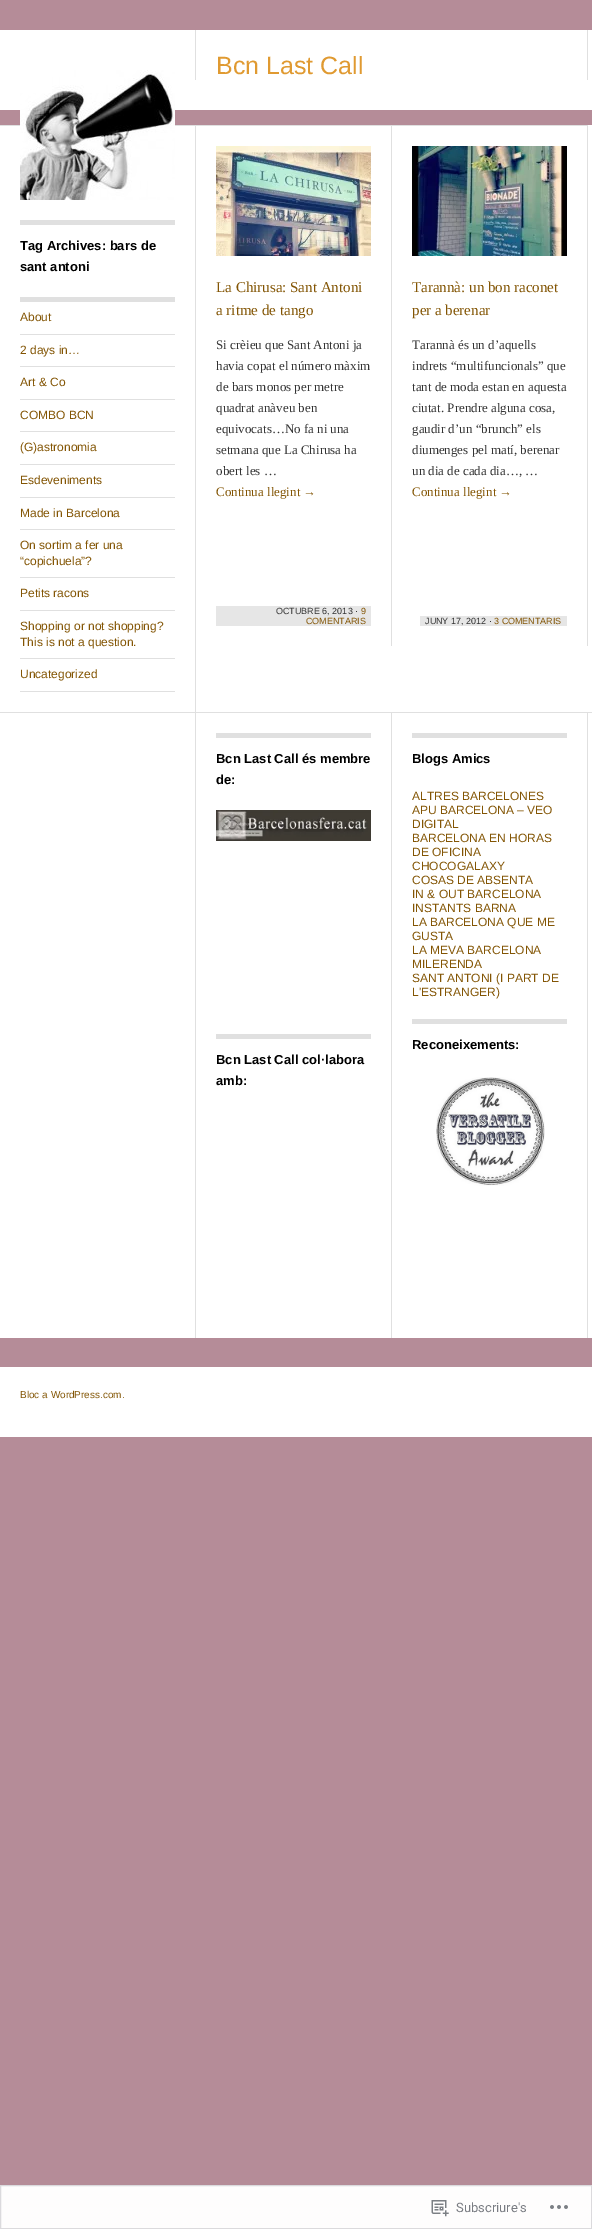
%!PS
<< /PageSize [592 2229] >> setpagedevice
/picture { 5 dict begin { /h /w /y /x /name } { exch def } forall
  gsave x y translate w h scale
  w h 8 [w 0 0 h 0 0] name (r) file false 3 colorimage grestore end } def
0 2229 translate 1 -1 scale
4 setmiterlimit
0.71 0.549 0.596 setrgbcolor
0 0 592 2229 rectfill
1 setgray
0 30 592 80 rectfill
0.878 setgray
195 30 1 50 rectfill
/LiberationSans-Regular [25 0 0 -25 0 0] selectfont
0.878 0.604 0.192 setrgbcolor
216 74 moveto (Bcn Last Call) show
0.878 setgray
587 30 1 50 rectfill
1 setgray
0 125 592 1213 rectfill
0.878 setgray
0 125 588 1 rectfill
(img1.rgb) 20 70 155 130 picture
195 125 1 587 rectfill
20 220 155 5 rectfill
/LiberationSans-Bold [13 0 0 -13 0 0] selectfont
0 setgray
20 250 moveto (Tag Archives: bars de) show
20 271 moveto (sant antoni) show
0.878 setgray
20 297 155 5 rectfill
20 334 155 1 rectfill
/LiberationSans-Regular [12 0 0 -12 0 0] selectfont
0.514 0.333 0.016 setrgbcolor
20 321 moveto (About) show
0.878 setgray
20 366 155 1 rectfill
0.514 0.333 0.016 setrgbcolor
20 354 moveto (2 days in…) show
0.878 setgray
20 399 155 1 rectfill
0.514 0.333 0.016 setrgbcolor
20 386 moveto (Art & Co) show
0.878 setgray
20 431 155 1 rectfill
0.514 0.333 0.016 setrgbcolor
20 419 moveto (COMBO BCN) show
0.878 setgray
20 464 155 1 rectfill
0.514 0.333 0.016 setrgbcolor
20 451 moveto (\(G\)astronomia) show
0.878 setgray
20 497 155 1 rectfill
0.514 0.333 0.016 setrgbcolor
20 484 moveto (Esdeveniments) show
0.878 setgray
20 529 155 1 rectfill
0.514 0.333 0.016 setrgbcolor
20 517 moveto (Made in Barcelona) show
0.878 setgray
20 577 155 1 rectfill
0.514 0.333 0.016 setrgbcolor
20 549 moveto (On sortim a fer una) show
20 565 moveto (“copichuela”?) show
0.878 setgray
20 610 155 1 rectfill
0.514 0.333 0.016 setrgbcolor
20 597 moveto (Petits racons) show
0.878 setgray
20 658 155 1 rectfill
0.514 0.333 0.016 setrgbcolor
20 630 moveto (Shopping or not shopping?) show
20 646 moveto (This is not a question.) show
0.878 setgray
20 691 155 1 rectfill
0.514 0.333 0.016 setrgbcolor
20 678 moveto (Uncategorized) show
0.878 setgray
391 125 1 521 rectfill
(img2.rgb) 216 146 155 110 picture
/LiberationSerif-Regular [15 0 0 -15 0 0] selectfont
0.514 0.333 0.016 setrgbcolor
216 292 moveto (La Chirusa: Sant Antoni) show
216 315 moveto (a ritme de tango) show
/LiberationSerif-Regular [13 0 0 -13 0 0] selectfont
0.2 setgray
216 349 moveto (Si crèieu que Sant Antoni ja) show
216 370 moveto (havia copat el número màxim) show
216 391 moveto (de bars monos per metre) show
216 412 moveto (quadrat anàveu ben) show
216 433 moveto (equivocats…No fa ni una) show
216 454 moveto (setmana que La Chirusa ha) show
216 475 moveto (obert les …) show
0.514 0.333 0.016 setrgbcolor
216 496 moveto (Continua llegint →) show
0.902 setgray
216 606 155 20 rectfill
/LiberationSans-Regular [9 0 0 -9 0 0] selectfont
0.2 setgray
276 614 moveto (OCTUBRE 6, 2013 ·) show
0.514 0.333 0.016 setrgbcolor
361 614 moveto (9) show
306 624 moveto (COMENTARIS) show
0.878 setgray
587 125 1 521 rectfill
(img3.rgb) 412 146 155 110 picture
/LiberationSerif-Regular [15 0 0 -15 0 0] selectfont
0.514 0.333 0.016 setrgbcolor
412 292 moveto (Tarannà: un bon raconet) show
412 315 moveto (per a berenar) show
/LiberationSerif-Regular [13 0 0 -13 0 0] selectfont
0.2 setgray
412 349 moveto (Tarannà és un d’aquells) show
412 370 moveto (indrets “multifuncionals” que) show
412 391 moveto (tant de moda estan en aquesta) show
412 412 moveto (ciutat. Prendre alguna cosa,) show
412 433 moveto (gaudir d’un “brunch” els) show
412 454 moveto (diumenges pel matí, berenar) show
412 475 moveto (un dia de cada dia…, …) show
0.514 0.333 0.016 setrgbcolor
412 496 moveto (Continua llegint →) show
0.902 setgray
420 616 147 10 rectfill
/LiberationSans-Regular [9 0 0 -9 0 0] selectfont
0.2 setgray
425 624 moveto (JUNY 17, 2012 ·) show
0.514 0.333 0.016 setrgbcolor
494 624 moveto (3 COMENTARIS) show
0.878 setgray
0 712 592 1 rectfill
195 713 1 625 rectfill
391 713 1 625 rectfill
216 733 155 5 rectfill
/LiberationSans-Bold [13 0 0 -13 0 0] selectfont
0 setgray
216 763 moveto (Bcn Last Call és membre) show
216 784 moveto (de:) show
(img4.rgb) 216 810 155 31 picture
0.878 setgray
216 1034 155 5 rectfill
0 setgray
216 1064 moveto (Bcn Last Call col·labora) show
216 1085 moveto (amb:) show
0.878 setgray
587 713 1 625 rectfill
412 733 155 5 rectfill
0 setgray
412 763 moveto (Blogs Amics) show
/LiberationSans-Regular [12 0 0 -12 0 0] selectfont
0.514 0.333 0.016 setrgbcolor
412 800 moveto (ALTRES BARCELONES) show
412 814 moveto (APU BARCELONA – VEO) show
412 828 moveto (DIGITAL) show
412 842 moveto (BARCELONA EN HORAS) show
412 856 moveto (DE OFICINA) show
412 870 moveto (CHOCOGALAXY) show
412 884 moveto (COSAS DE ABSENTA) show
412 898 moveto (IN & OUT BARCELONA) show
412 912 moveto (INSTANTS BARNA) show
412 926 moveto (LA BARCELONA QUE ME) show
412 940 moveto (GUSTA) show
412 954 moveto (LA MEVA BARCELONA) show
412 968 moveto (MILERENDA) show
412 982 moveto (SANT ANTONI \(I PART DE) show
412 996 moveto (L'ESTRANGER\)) show
0.878 setgray
412 1019 155 5 rectfill
/LiberationSans-Bold [13 0 0 -13 0 0] selectfont
0 setgray
412 1049 moveto (Reconeixements:) show
(img5.rgb) 436 1077 109 109 picture
1 setgray
0 1367 592 70 rectfill
/LiberationSans-Regular [10 0 0 -10 0 0] selectfont
0.514 0.333 0.016 setrgbcolor
20 1398 moveto (Bloc a WordPress.com.) show
0.996 0.992 0.992 setrgbcolor
newpath 0.5 2185.5 moveto 591.5 2185.5 lineto 591.5 2228.5 lineto 0.5 2228.5 lineto closepath gsave fill grestore
0.859 0.855 0.867 setrgbcolor
stroke
(img6.rgb) 431 2200 18 17 picture
/Roboto-Regular [13 0 0 -13 0 0] selectfont
0.475 0.486 0.51 setrgbcolor
456 2212 moveto (Subscriure's) show
(img7.rgb) 550 2205 18 4 picture
showpage
